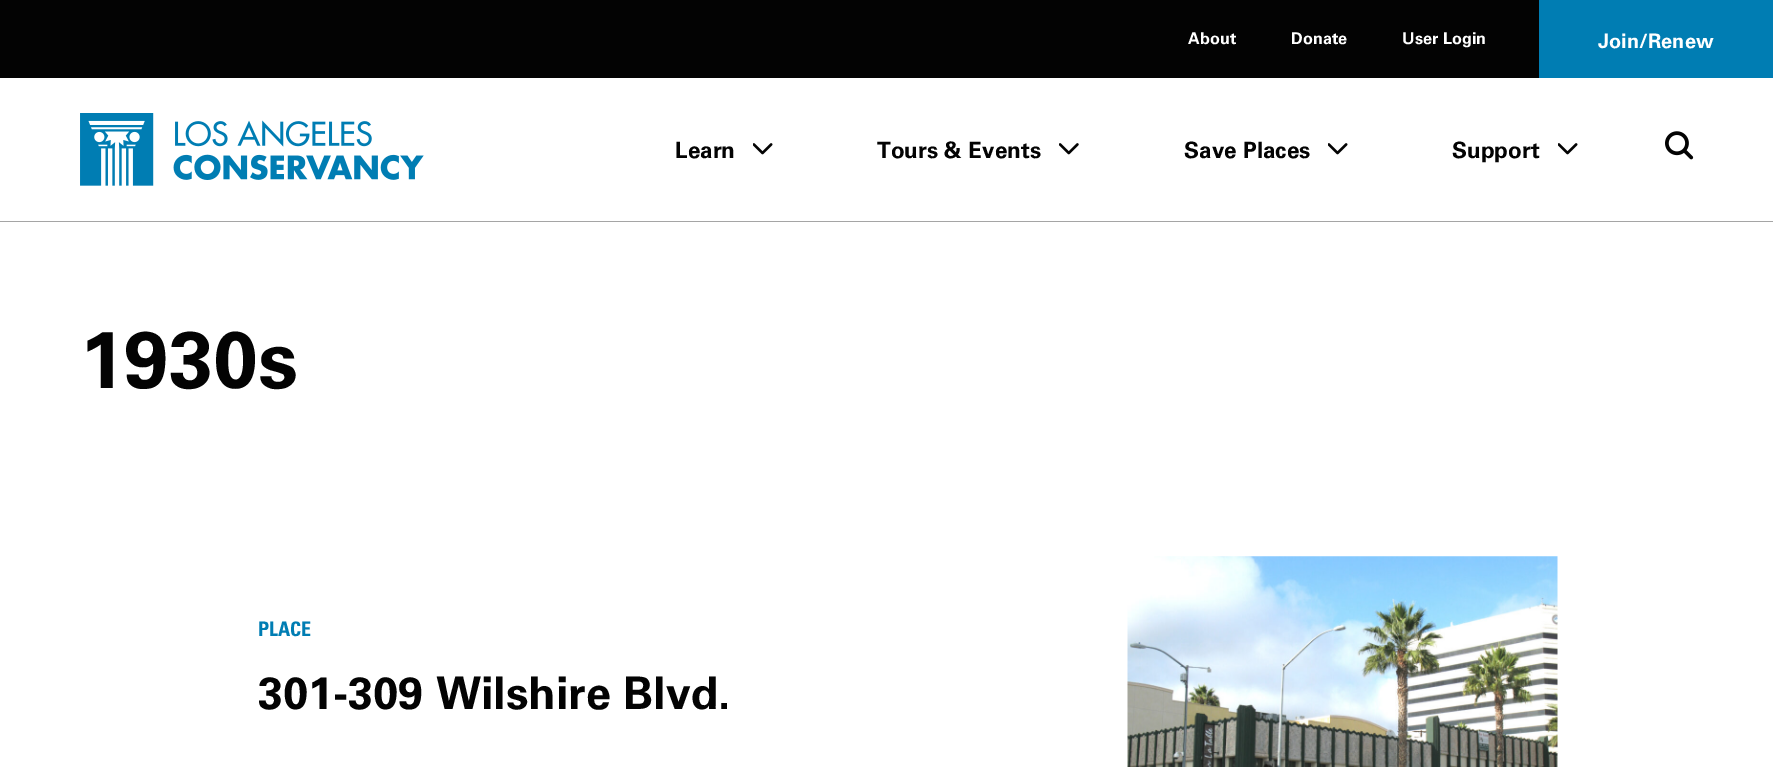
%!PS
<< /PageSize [1773 767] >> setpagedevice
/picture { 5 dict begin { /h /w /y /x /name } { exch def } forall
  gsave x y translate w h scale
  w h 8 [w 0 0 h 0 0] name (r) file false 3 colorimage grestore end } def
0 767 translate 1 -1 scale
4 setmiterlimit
1 setgray
0 0 1773 767 rectfill
0.647 setgray
0 221 1773 1 rectfill
0.012 setgray
0 0 1539 78 rectfill
/Univers-Bold [16.25 0 0 -16.25 0 0] selectfont
1 setgray
1188 44 moveto (About) show
1291 44 moveto (Donate) show
1402 44 moveto (User Login) show
0 0.49 0.702 setrgbcolor
1539 0 234 78 rectfill
/Univers-Bold [20 0 0 -20 0 0] selectfont
1 setgray
1598 48 moveto (Join/Renew) show
(img1.rgb) 80 113 344 73 picture
/Univers-Bold [22.5 0 0 -22.5 0 0] selectfont
0.012 setgray
675 158 moveto (Learn) show
(img2.rgb) 753 143 20 12 picture
877 158 moveto (Tours & Events) show
(img3.rgb) 1059 143 20 12 picture
1184 158 moveto (Save Places) show
(img2.rgb) 1328 143 20 12 picture
1452 158 moveto (Support) show
(img2.rgb) 1558 143 20 12 picture
(img4.rgb) 1665 131 29 29 picture
/Univers-Bold [80 0 0 -80 0 0] selectfont
80 388 moveto (1930s) show
/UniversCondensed-Bold [20 0 0 -20 0 0] selectfont
0 0.49 0.702 setrgbcolor
258 636 moveto (PLACE) show
/Univers-Bold [45 0 0 -45 0 0] selectfont
0.012 setgray
258 709 moveto (301-309 Wilshire Blvd.) show
(img5.rgb) 1127 556 431 211 picture
showpage
